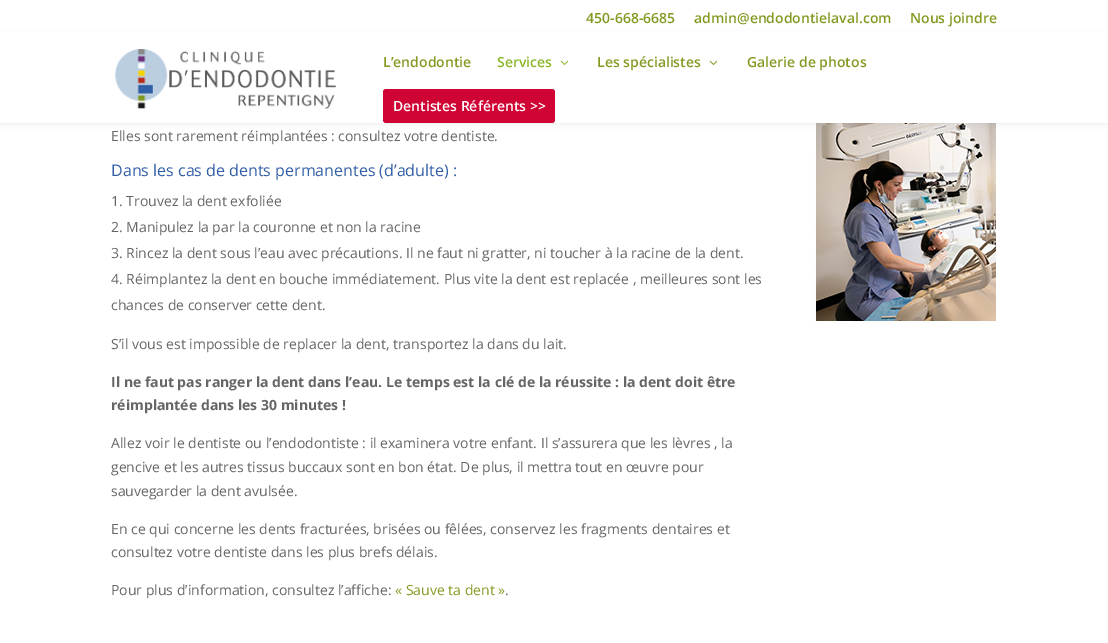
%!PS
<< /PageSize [1108 643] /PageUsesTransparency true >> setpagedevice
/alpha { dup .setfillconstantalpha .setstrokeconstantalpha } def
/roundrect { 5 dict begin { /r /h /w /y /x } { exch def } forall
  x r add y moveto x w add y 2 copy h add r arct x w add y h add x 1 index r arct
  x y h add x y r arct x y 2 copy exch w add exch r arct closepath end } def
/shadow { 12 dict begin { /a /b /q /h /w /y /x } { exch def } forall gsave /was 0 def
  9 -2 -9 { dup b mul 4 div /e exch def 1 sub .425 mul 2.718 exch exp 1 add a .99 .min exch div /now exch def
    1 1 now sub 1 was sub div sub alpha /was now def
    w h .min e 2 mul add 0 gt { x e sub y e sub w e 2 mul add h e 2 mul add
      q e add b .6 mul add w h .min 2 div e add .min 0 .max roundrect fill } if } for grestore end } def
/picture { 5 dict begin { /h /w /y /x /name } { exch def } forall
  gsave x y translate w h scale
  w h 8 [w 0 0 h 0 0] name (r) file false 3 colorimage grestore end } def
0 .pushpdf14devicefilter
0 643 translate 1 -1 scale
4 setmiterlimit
1 setgray
0 0 1108 643 rectfill
(img4.rgb) 812 123 184 201 picture
0 setgray
0 35 1108 88 0 3.5 0.1 shadow
/OpenSans-SemiBold [14 0 0 -14 0 0] selectfont
0.51 0.604 0.133 setrgbcolor
586 23 moveto (450-668-6685) show
694 23 moveto (admin@endodontielaval.com) show
910 23 moveto (Nous joindre) show
1 setgray
0 31 1108 92 rectfill
(img1.rgb) 115 49 221 60 picture
0.51 0.604 0.133 setrgbcolor
383 67 moveto (L’endodontie) show
0.541 0.718 0.157 setrgbcolor
497 67 moveto (Services) show
(img2.rgb) 560 60 9 5 picture
0.51 0.604 0.133 setrgbcolor
597 67 moveto (Les spécialistes) show
(img3.rgb) 709 60 9 5 picture
747 67 moveto (Galerie de photos) show
0.812 0.012 0.204 setrgbcolor
383 89 172 34 3 roundrect fill
1 setgray
393 111 moveto (Dentistes Référents >>) show
/OpenSans-Regular [14 0 0 -14 0 0] selectfont
0.4 setgray
111 141 moveto (Elles sont rarement réimplantées : consultez votre dentiste.) show
/OpenSans-Regular [16 0 0 -16 0 0] selectfont
0.196 0.373 0.651 setrgbcolor
111 176 moveto (Dans les cas de dents permanentes \(d’adulte\) :) show
/OpenSans-Regular [14 0 0 -14 0 0] selectfont
0.4 setgray
111 206 moveto (1. Trouvez la dent exfoliée) show
111 232 moveto (2. Manipulez la par la couronne et non la racine) show
111 258 moveto (3. Rincez la dent sous l’eau avec précautions. Il ne faut ni gratter, ni toucher à la racine de la dent.) show
111 284 moveto (4. Réimplantez la dent en bouche immédiatement. Plus vite la dent est replacée , meilleures sont les) show
111 310 moveto (chances de conserver cette dent.) show
111 349 moveto (S’il vous est impossible de replacer la dent, transportez la dans du lait.) show
/OpenSans-Bold [14 0 0 -14 0 0] selectfont
111 387 moveto (Il ne faut pas ranger la dent dans l’eau. Le temps est la clé de la réussite : la dent doit être) show
111 410 moveto (réimplantée dans les 30 minutes !) show
/OpenSans-Regular [14 0 0 -14 0 0] selectfont
111 448 moveto (Allez voir le dentiste ou l’endodontiste : il examinera votre enfant. Il s’assurera que les lèvres , la) show
111 472 moveto (gencive et les autres tissus buccaux sont en bon état. De plus, il mettra tout en œuvre pour) show
111 496 moveto (sauvegarder la dent avulsée.) show
111 534 moveto (En ce qui concerne les dents fracturées, brisées ou fêlées, conservez les fragments dentaires et) show
111 557 moveto (consultez votre dentiste dans les plus brefs délais.) show
111 595 moveto (Pour plus d’information, consultez l’affiche:) show
0.51 0.604 0.133 setrgbcolor
395 595 moveto (« Sauve ta dent ») show
0.4 setgray
505 595 moveto (.) show
.poppdf14devicefilter showpage
